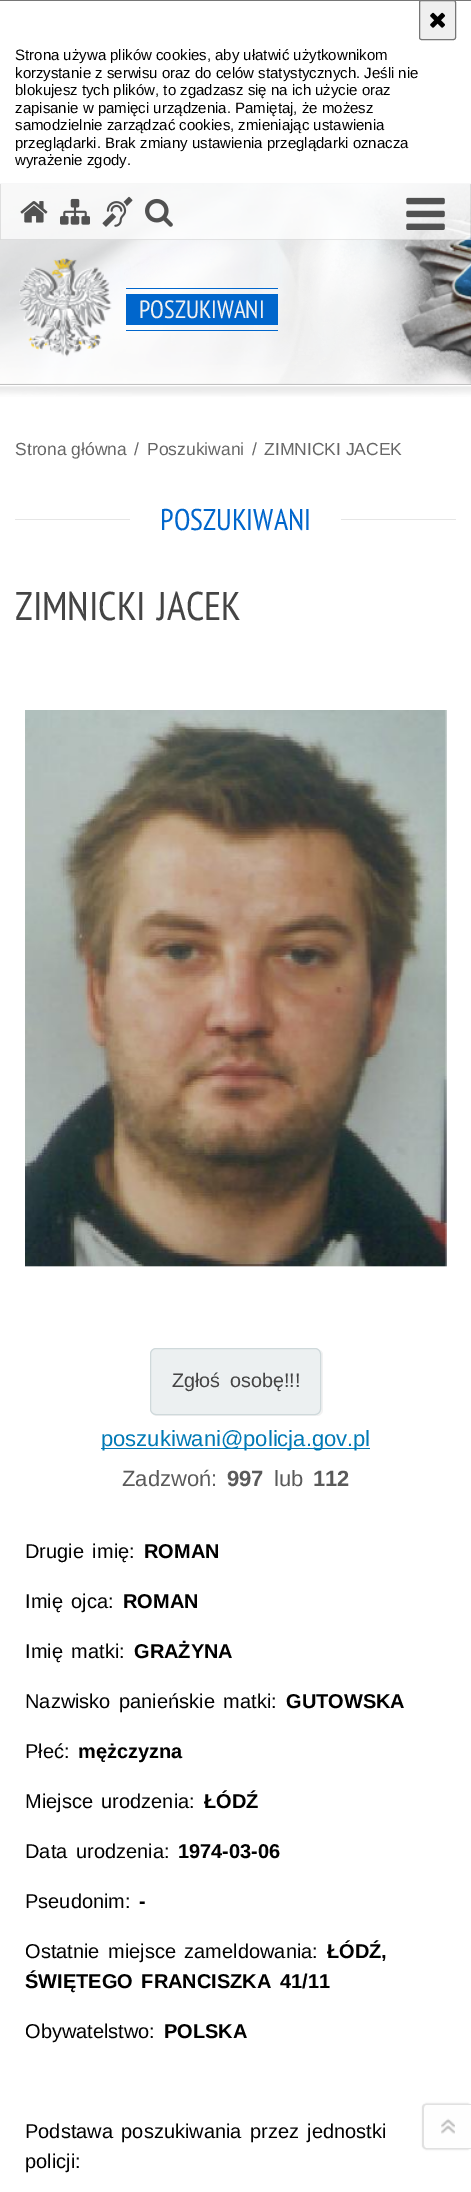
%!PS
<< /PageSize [471 2192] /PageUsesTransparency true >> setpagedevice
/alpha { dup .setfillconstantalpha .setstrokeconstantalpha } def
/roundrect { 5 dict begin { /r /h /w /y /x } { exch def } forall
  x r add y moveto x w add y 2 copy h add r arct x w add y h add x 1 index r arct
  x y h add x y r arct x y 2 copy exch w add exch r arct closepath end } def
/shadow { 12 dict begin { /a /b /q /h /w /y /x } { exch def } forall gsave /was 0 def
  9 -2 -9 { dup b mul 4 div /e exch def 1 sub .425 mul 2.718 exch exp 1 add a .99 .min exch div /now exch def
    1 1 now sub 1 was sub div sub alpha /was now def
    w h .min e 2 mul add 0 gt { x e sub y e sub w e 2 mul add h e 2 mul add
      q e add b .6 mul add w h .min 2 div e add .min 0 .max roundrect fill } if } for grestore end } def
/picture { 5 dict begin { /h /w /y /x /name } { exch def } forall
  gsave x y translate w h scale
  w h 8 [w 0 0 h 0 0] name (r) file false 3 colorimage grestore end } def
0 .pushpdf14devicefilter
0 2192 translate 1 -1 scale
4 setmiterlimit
1 setgray
0 0 471 2192 rectfill
0.463 setgray
0 0 471 1 rectfill
0.937 setgray
419.5 0.5 36 39 2 roundrect gsave fill grestore
0.463 setgray
stroke
(img1.rgb) 430 12 15 16 picture
/LiberationSans-Regular [15 0 0 -15 0 0] selectfont
0 setgray
15 60 moveto (Strona używa plików cookies, aby ułatwić użytkownikom) show
15 78 moveto (korzystanie z serwisu oraz do celów statystycznych. Jeśli nie) show
15 95 moveto (blokujesz tych plików, to zgadzasz się na ich użycie oraz) show
15 113 moveto (zapisanie w pamięci urządzenia. Pamiętaj, że możesz) show
15 130 moveto (samodzielnie zarządzać cookies, zmieniając ustawienia) show
15 148 moveto (przeglądarki. Brak zmiany ustawienia przeglądarki oznacza) show
15 165 moveto (wyrażenie zgody.) show
(img2.rgb) 0 183 471 201 picture
(img3.rgb) 0 386 471 11 picture
(img4.rgb) 0 184 471 200 picture
0.757 setgray
0 384 471 1 rectfill
0.7 alpha
1 setgray
0 184 471 56 rectfill
0.1 alpha
0 setgray
newpath 471 184 moveto 471 240 lineto 470 239 lineto 470 184 lineto closepath fill
newpath 471 240 moveto 0 240 lineto 1 239 lineto 470 239 lineto closepath fill
newpath 0 240 moveto 0 184 lineto 1 184 lineto 1 239 lineto closepath fill
1 alpha
(img5.rgb) 20 201 28 22 picture
(img6.rgb) 60 198 30 27 picture
(img7.rgb) 102 196 31 31 picture
(img8.rgb) 145 198 28 29 picture
(img9.rgb) 406 197 39 33 picture
(img10.rgb) 19 258 93 99 picture
0 0.4 0.8 setrgbcolor
126 288 152 1 rectfill
126 330 152 1 rectfill
126 294 152 31 rectfill
/PTSansNarrow-Regular [25 0 0 -25 0 0] selectfont
0.945 setgray
139 318 moveto (POSZUKIWANI) show
/LiberationSans-Regular [17.5 0 0 -17.5 0 0] selectfont
0.4 setgray
15 455 moveto (Strona główna) show
134 455 moveto (/) show
147 455 moveto (Poszukiwani) show
252 455 moveto (/) show
264 455 moveto (ZIMNICKI JACEK) show
0.902 setgray
15 519 441 1 rectfill
1 setgray
130 519 211 1 rectfill
/PTSansNarrow-Regular [30 0 0 -30 0 0] selectfont
0 0.4 0.8 setrgbcolor
160 530 moveto (POSZUKIWANI) show
/PTSansNarrow-Regular [40 0 0 -40 0 0] selectfont
0.267 setgray
15 620 moveto 3 0 32 (ZIMNICKI JACEK) widthshow
(img11.rgb) 25 710 422 557 picture
0.949 setgray
newpath 152 1413 moveto 153 1415 155 1416 157 1416 curveto 317 1416 lineto 320 1416 323 1413 323 1410 curveto 323 1355 lineto 323 1353 322 1351 320 1350 curveto 321 1351 321 1352 321 1354 curveto 321 1409 lineto 321 1412 318 1415 315 1415 curveto 156 1415 lineto 155 1415 153 1414 152 1413 curveto closepath fill
0.925 0.941 0.945 setrgbcolor
150.5 1348.5 170 66 5.5 roundrect gsave fill grestore
0.812 0.851 0.859 setrgbcolor
stroke
/LiberationSans-Regular [19.75 0 0 -19.75 0 0] selectfont
0.267 setgray
172 1387 moveto 4 0 32 (Zgłoś osobę!!!) widthshow
0 0.475 0.71 setrgbcolor
101 1448 269 1 rectfill
/LiberationSans-Regular [22 0 0 -22 0 0] selectfont
101 1446 moveto (poszukiwani@policja.gov.pl) show
0.353 setgray
122 1486 moveto (Zadzwoń:) show
/LiberationSans-Bold [22 0 0 -22 0 0] selectfont
227 1486 moveto (997) show
/LiberationSans-Regular [22 0 0 -22 0 0] selectfont
274 1486 moveto (lub) show
/LiberationSans-Bold [22 0 0 -22 0 0] selectfont
313 1486 moveto (112) show
/LiberationSans-Regular [20 0 0 -20 0 0] selectfont
0 setgray
25 1558 moveto 3 0 32 (Drugie imię:) widthshow
/LiberationSans-Bold [20 0 0 -20 0 0] selectfont
144 1558 moveto (ROMAN) show
/LiberationSans-Regular [20 0 0 -20 0 0] selectfont
25 1608 moveto 3 0 32 (Imię ojca:) widthshow
/LiberationSans-Bold [20 0 0 -20 0 0] selectfont
123 1608 moveto (ROMAN) show
/LiberationSans-Regular [20 0 0 -20 0 0] selectfont
25 1658 moveto 3 0 32 (Imię matki:) widthshow
/LiberationSans-Bold [20 0 0 -20 0 0] selectfont
134 1658 moveto (GRAŻYNA) show
/LiberationSans-Regular [20 0 0 -20 0 0] selectfont
25 1708 moveto 3 0 32 (Nazwisko panieńskie matki:) widthshow
/LiberationSans-Bold [20 0 0 -20 0 0] selectfont
286 1708 moveto (GUTOWSKA) show
/LiberationSans-Regular [20 0 0 -20 0 0] selectfont
25 1758 moveto (Płeć:) show
/LiberationSans-Bold [20 0 0 -20 0 0] selectfont
78 1758 moveto (mężczyzna) show
/LiberationSans-Regular [20 0 0 -20 0 0] selectfont
25 1808 moveto 3 0 32 (Miejsce urodzenia:) widthshow
/LiberationSans-Bold [20 0 0 -20 0 0] selectfont
204 1808 moveto (ŁÓDŹ) show
/LiberationSans-Regular [20 0 0 -20 0 0] selectfont
25 1858 moveto 3 0 32 (Data urodzenia:) widthshow
/LiberationSans-Bold [20 0 0 -20 0 0] selectfont
178 1858 moveto (1974-03-06) show
/LiberationSans-Regular [20 0 0 -20 0 0] selectfont
25 1908 moveto (Pseudonim:) show
/LiberationSans-Bold [20 0 0 -20 0 0] selectfont
139 1908 moveto (-) show
/LiberationSans-Regular [20 0 0 -20 0 0] selectfont
25 1958 moveto 3 0 32 (Ostatnie miejsce zameldowania:) widthshow
/LiberationSans-Bold [20 0 0 -20 0 0] selectfont
327 1958 moveto (ŁÓDŹ,) show
25 1988 moveto 3 0 32 (ŚWIĘTEGO FRANCISZKA 41/11) widthshow
/LiberationSans-Regular [20 0 0 -20 0 0] selectfont
25 2038 moveto (Obywatelstwo:) show
/LiberationSans-Bold [20 0 0 -20 0 0] selectfont
164 2038 moveto (POLSKA) show
/LiberationSans-Regular [20 0 0 -20 0 0] selectfont
25 2138 moveto 3 0 32 (Podstawa poszukiwania przez jednostki) widthshow
25 2168 moveto (policji:) show
423 2104 48 45 4 1 0.25 shadow
0.996 setgray
newpath 427 2104 moveto 471 2104 lineto 471 2149 lineto 427 2149 lineto 425 2149 423 2147 423 2145 curveto 423 2108 lineto 423 2106 425 2104 427 2104 curveto closepath fill
0.882 setgray
newpath 426 2104 moveto 471 2104 lineto 471 2149 lineto 426 2149 lineto 424 2149 422 2147 422 2145 curveto 422 2108 lineto 422 2105 424 2104 426 2104 curveto closepath 426 2105 moveto 471 2105 lineto 471 2148 lineto 426 2148 lineto 425 2148 424 2146 424 2145 curveto 424 2108 lineto 424 2106 425 2105 426 2105 curveto closepath eofill
(img12.rgb) 441 2118 14 16 picture
.poppdf14devicefilter showpage
